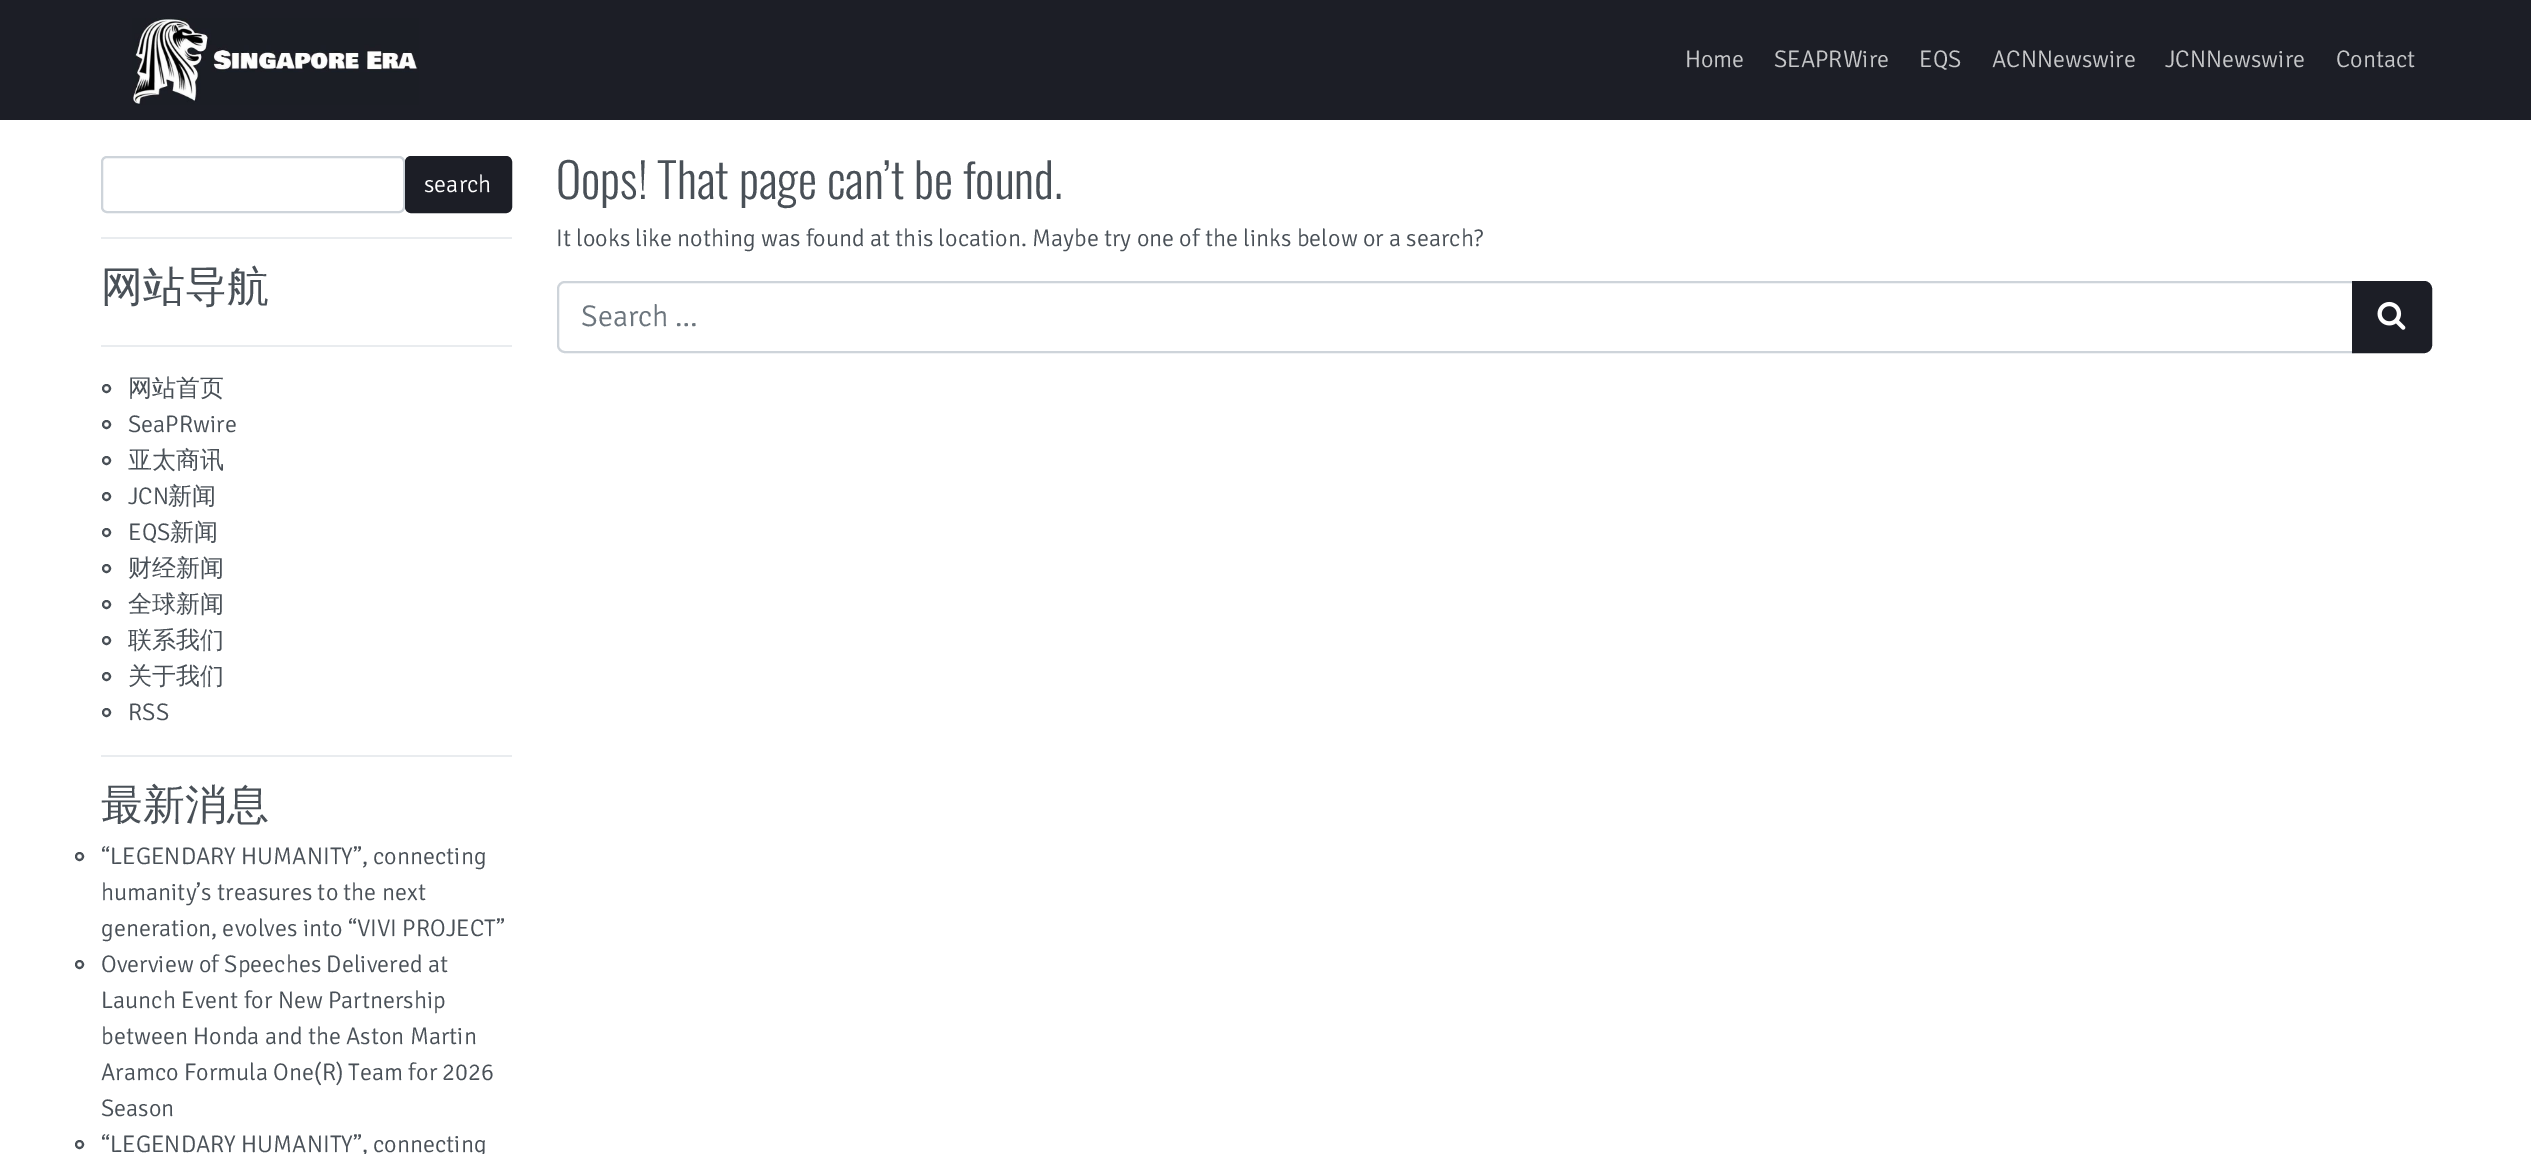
%!PS
<< /PageSize [2531 1154] >> setpagedevice
/roundrect { 5 dict begin { /r /h /w /y /x } { exch def } forall
  x r add y moveto x w add y 2 copy h add r arct x w add y h add x 1 index r arct
  x y h add x y r arct x y 2 copy exch w add exch r arct closepath end } def
/picture { 5 dict begin { /h /w /y /x /name } { exch def } forall
  gsave x y translate w h scale
  w h 8 [w 0 0 h 0 0] name (r) file false 3 colorimage grestore end } def
0 1154 translate 1 -1 scale
4 setmiterlimit
1 setgray
0 0 2531 1154 rectfill
0.11 0.118 0.149 setrgbcolor
0 0 2531 120 rectfill
(img1.rgb) 132 18 287 87 picture
/Signika-Light [24 0 0 -24 0 0] selectfont
0.776 0.78 0.788 setrgbcolor
1685 67 moveto (Home) show
1774 67 moveto (SEAPRWire) show
1919 67 moveto (EQS) show
1992 67 moveto (ACNNewswire) show
2165 67 moveto (JCNNewswire) show
2336 67 moveto (Contact) show
0.914 0.925 0.937 setrgbcolor
101 237 411 2 rectfill
0.808 0.831 0.855 setrgbcolor
2 setlinewidth
102 157 302 55 5 roundrect stroke
0.11 0.118 0.149 setrgbcolor
406 157 105 55 5 roundrect gsave fill grestore
stroke
1 setgray
424 192 moveto (search) show
0.914 0.925 0.937 setrgbcolor
101 345 411 2 rectfill
/WenQuanYiZenHei-Medium [42 0 0 -42 0 0] selectfont
0.286 0.314 0.341 setrgbcolor
101 301 moveto (网站导航) show
0.914 0.925 0.937 setrgbcolor
101 755 411 2 rectfill
0.286 0.314 0.341 setrgbcolor
newpath 106.5 388.5 3.5 0 360 arc closepath stroke
/WenQuanYiZenHei-Medium [24 0 0 -24 0 0] selectfont
128 396 moveto (网站首页) show
newpath 106.5 424.5 3.5 0 360 arc closepath stroke
/Signika-Light [24 0 0 -24 0 0] selectfont
128 432 moveto (SeaPRwire) show
newpath 106.5 460.5 3.5 0 360 arc closepath stroke
/WenQuanYiZenHei-Medium [24 0 0 -24 0 0] selectfont
128 468 moveto (亚太商讯) show
newpath 106.5 496.5 3.5 0 360 arc closepath stroke
/Signika-Light [24 0 0 -24 0 0] selectfont
128 504 moveto (JCN) show
/WenQuanYiZenHei-Medium [24 0 0 -24 0 0] selectfont
168 504 moveto (新闻) show
newpath 106.5 532.5 3.5 0 360 arc closepath stroke
/Signika-Light [24 0 0 -24 0 0] selectfont
128 540 moveto (EQS) show
/WenQuanYiZenHei-Medium [24 0 0 -24 0 0] selectfont
170 540 moveto (新闻) show
newpath 106.5 568.5 3.5 0 360 arc closepath stroke
128 576 moveto (财经新闻) show
newpath 106.5 604.5 3.5 0 360 arc closepath stroke
128 612 moveto (全球新闻) show
newpath 106.5 640.5 3.5 0 360 arc closepath stroke
128 648 moveto (联系我们) show
newpath 106.5 676.5 3.5 0 360 arc closepath stroke
128 684 moveto (关于我们) show
newpath 106.5 712.5 3.5 0 360 arc closepath stroke
/Signika-Light [24 0 0 -24 0 0] selectfont
128 720 moveto (RSS) show
/WenQuanYiZenHei-Medium [42 0 0 -42 0 0] selectfont
101 819 moveto (最新消息) show
newpath 79.5 856.5 3.5 0 360 arc closepath stroke
/Signika-Light [24 0 0 -24 0 0] selectfont
101 864 moveto (“LEGENDARY HUMANITY”, connecting) show
101 900 moveto (humanity’s treasures to the next) show
101 936 moveto (generation, evolves into “VIVI PROJECT”) show
newpath 79.5 964.5 3.5 0 360 arc closepath stroke
101 972 moveto (Overview of Speeches Delivered at) show
101 1008 moveto (Launch Event for New Partnership) show
101 1044 moveto (between Honda and the Aston Martin) show
101 1080 moveto (Aramco Formula One\(R\) Team for 2026) show
101 1116 moveto (Season) show
newpath 79.5 1144.5 3.5 0 360 arc closepath stroke
101 1152 moveto (“LEGENDARY HUMANITY”, connecting) show
/Oswald-Light [48 0 0 -48 0 0] selectfont
556 199 moveto (Oops! That page can’t be found.) show
/Signika-Light [24 0 0 -24 0 0] selectfont
556 246 moveto (It looks like nothing was found at this location. Maybe try one of the links below or a search?) show
0.808 0.831 0.855 setrgbcolor
newpath 565 282 moveto 2353 282 lineto 2353 352 lineto 565 352 lineto 561 352 558 349 558 345 curveto 558 289 lineto 558 285 561 282 565 282 curveto closepath stroke
/Signika-Light [30 0 0 -30 0 0] selectfont
0.424 0.459 0.49 setrgbcolor
581 326 moveto (Search …) show
0.11 0.118 0.149 setrgbcolor
newpath 2353 282 moveto 2424 282 lineto 2428 282 2431 285 2431 289 curveto 2431 345 lineto 2431 349 2428 352 2424 352 curveto 2353 352 lineto closepath gsave fill grestore
stroke
(img2.rgb) 2377 301 29 29 picture
showpage
